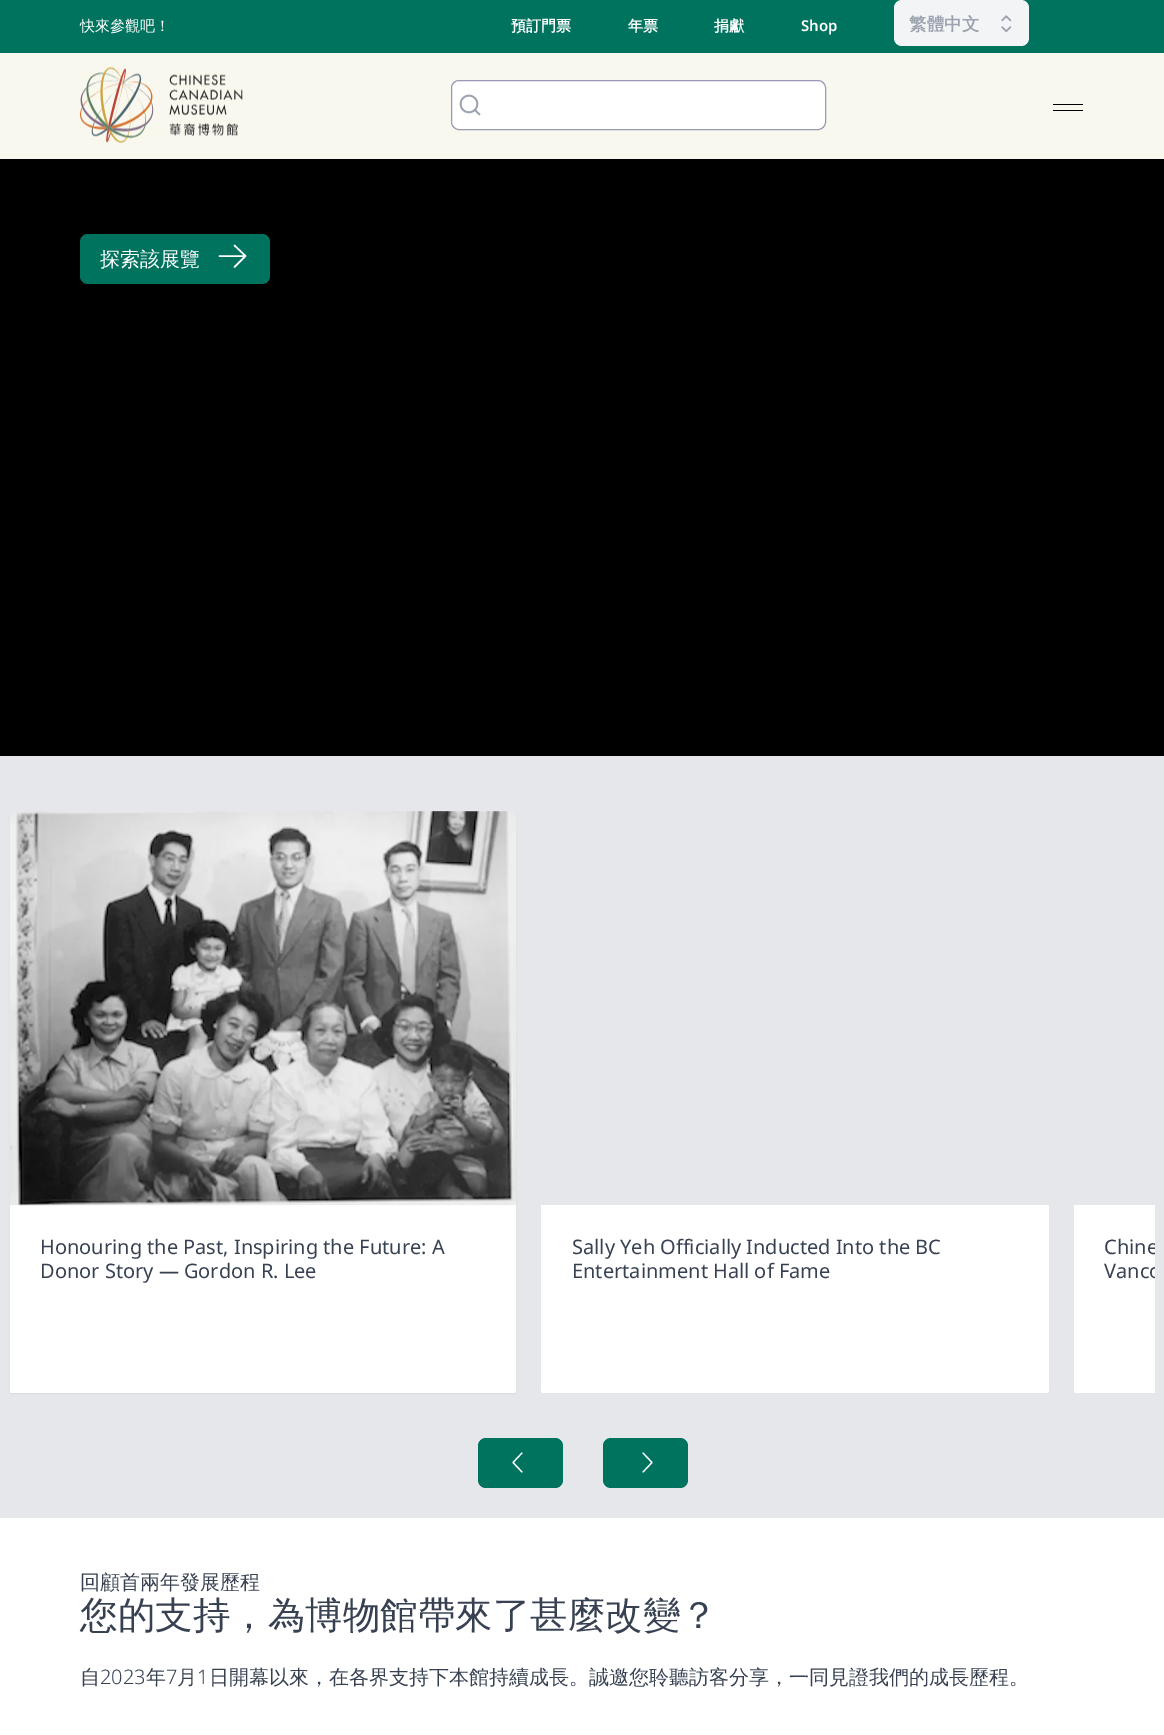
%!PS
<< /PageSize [1164 1735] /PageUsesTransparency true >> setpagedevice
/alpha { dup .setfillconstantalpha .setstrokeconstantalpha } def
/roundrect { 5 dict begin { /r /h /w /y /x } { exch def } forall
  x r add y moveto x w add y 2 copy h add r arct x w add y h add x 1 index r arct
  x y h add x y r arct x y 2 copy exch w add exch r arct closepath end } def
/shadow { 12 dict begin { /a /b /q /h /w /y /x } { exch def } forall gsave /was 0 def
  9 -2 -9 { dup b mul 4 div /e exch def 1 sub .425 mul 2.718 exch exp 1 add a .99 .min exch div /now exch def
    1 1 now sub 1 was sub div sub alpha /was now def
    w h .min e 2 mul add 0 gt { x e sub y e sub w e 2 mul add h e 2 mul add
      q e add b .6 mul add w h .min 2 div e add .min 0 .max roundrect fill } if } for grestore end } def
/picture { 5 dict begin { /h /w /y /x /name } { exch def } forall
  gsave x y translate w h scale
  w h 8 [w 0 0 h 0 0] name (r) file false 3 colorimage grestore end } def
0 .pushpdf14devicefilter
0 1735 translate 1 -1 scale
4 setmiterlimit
1 setgray
0 0 1164 1735 rectfill
0.973 0.973 0.933 setrgbcolor
0 53 1164 106 rectfill
0 0.451 0.373 setrgbcolor
0 0 1164 53 rectfill
/WenQuanYiZenHei-Medium [15 0 0 -15 0 0] selectfont
1 setgray
80 31 moveto (快來參觀吧！) show
/WenQuanYiZenHei-Bold [15 0 0 -15 0 0] selectfont
511 31 moveto (預訂門票) show
628 31 moveto (年票) show
714 31 moveto (捐獻) show
/NotoSans-SemiBold [15 0 0 -15 0 0] selectfont
801 31 moveto (Shop) show
0.953 0.957 0.965 setrgbcolor
894 0 135 46 8 roundrect fill
/WenQuanYiZenHei-Bold [17.5 0 0 -17.5 0 0] selectfont
0.612 0.639 0.686 setrgbcolor
909 30 moveto (繁體中文) show
(img1.rgb) 1001 15 11 18 picture
(img2.rgb) 80 67 163 76 picture
1 setgray
451 80 375 50 8 roundrect fill
0.8 alpha
0.502 0.494 0.639 setrgbcolor
451.5 80.5 374 49 7.5 roundrect stroke
1 alpha
(img3.rgb) 459 94 22 22 picture
0 setgray
1053 104 30 1 rectfill
1053 110 30 1 rectfill
0 159 1164 597 rectfill
0 0.451 0.373 setrgbcolor
80 234 190 50 8 roundrect fill
/WenQuanYiZenHei-Medium [20 0 0 -20 0 0] selectfont
1 setgray
100 266 moveto (探索該展覽) show
1.5 setlinewidth
1 setlinecap
1 setlinejoin
newpath 234.5 245.5 moveto 245.5 256 lineto 245.5 256 moveto 234.5 267 lineto 245.5 256 moveto 219.5 256 lineto stroke
0.898 0.906 0.922 setrgbcolor
0 756 1164 762 rectfill
0 setgray
10 813 506 581 2.5 1 0.05 shadow
1 setgray
newpath 10 1205 moveto 516 1205 lineto 516 1390.5 lineto 516 1392 515 1393 513.5 1393 curveto 12.5 1393 lineto 11 1393 10 1392 10 1390.5 curveto closepath fill
(img4.rgb) 10 811 506 395 picture
/NotoSans-Regular [20 0 0 -20 0 0] selectfont
0.216 0.255 0.318 setrgbcolor
40 1254 moveto (Honouring the Past, Inspiring the Future: A) show
40 1278 moveto (Donor Story — Gordon R. Lee) show
1 setgray
newpath 541 1205 moveto 1049 1205 lineto 1049 1390.5 lineto 1049 1392 1048 1393 1046.5 1393 curveto 543.5 1393 lineto 542 1393 541 1392 541 1390.5 curveto closepath fill
0.216 0.255 0.318 setrgbcolor
572 1254 moveto (Sally Yeh Officially Inducted Into the BC) show
572 1278 moveto (Entertainment Hall of Fame) show
1 setgray
newpath 1074 1205 moveto 1155 1205 lineto 1155 1393 lineto 1076.5 1393 lineto 1075 1393 1074 1392 1074 1390.5 curveto closepath fill
gsave
10 796 1145 612 rectclip
0.216 0.255 0.318 setrgbcolor
1104 1254 moveto (Chine) show
1104 1278 moveto (Vanco) show
grestore
0 0.451 0.373 setrgbcolor
478 1438 85 50 8 roundrect fill
1 setgray
1.2 setlinewidth
newpath 522 1472 moveto 513 1462.5 lineto 522 1453 lineto stroke
0 0.451 0.373 setrgbcolor
603 1438 85 50 8 roundrect fill
1 setgray
newpath 643 1453 moveto 652 1462.5 lineto 643 1472 lineto stroke
/WenQuanYiZenHei-Medium [20 0 0 -20 0 0] selectfont
0.216 0.255 0.318 setrgbcolor
80 1589 moveto (回顧首兩年發展歷程) show
/WenQuanYiZenHei-Medium [37.5 0 0 -37.5 0 0] selectfont
80 1628 moveto (您的支持，為博物館帶來了甚麼改變？) show
/WenQuanYiZenHei-Medium [20 0 0 -20 0 0] selectfont
80 1684 moveto (自) show
/NotoSans-Light [20 0 0 -20 0 0] selectfont
100 1684 moveto (2023) show
/WenQuanYiZenHei-Medium [20 0 0 -20 0 0] selectfont
146 1684 moveto (年) show
/NotoSans-Light [20 0 0 -20 0 0] selectfont
166 1684 moveto (7) show
/WenQuanYiZenHei-Medium [20 0 0 -20 0 0] selectfont
177 1684 moveto (月) show
/NotoSans-Light [20 0 0 -20 0 0] selectfont
197 1684 moveto (1) show
/WenQuanYiZenHei-Medium [20 0 0 -20 0 0] selectfont
209 1684 moveto (日開幕以來，在各界支持下本館持續成長。誠邀您聆聽訪客分享，一同見證我們的成長歷程。) show
.poppdf14devicefilter showpage
